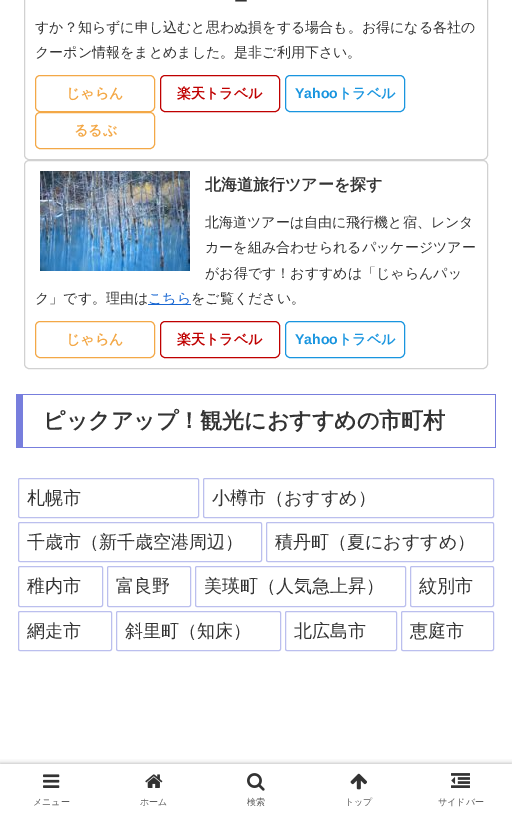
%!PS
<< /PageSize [512 814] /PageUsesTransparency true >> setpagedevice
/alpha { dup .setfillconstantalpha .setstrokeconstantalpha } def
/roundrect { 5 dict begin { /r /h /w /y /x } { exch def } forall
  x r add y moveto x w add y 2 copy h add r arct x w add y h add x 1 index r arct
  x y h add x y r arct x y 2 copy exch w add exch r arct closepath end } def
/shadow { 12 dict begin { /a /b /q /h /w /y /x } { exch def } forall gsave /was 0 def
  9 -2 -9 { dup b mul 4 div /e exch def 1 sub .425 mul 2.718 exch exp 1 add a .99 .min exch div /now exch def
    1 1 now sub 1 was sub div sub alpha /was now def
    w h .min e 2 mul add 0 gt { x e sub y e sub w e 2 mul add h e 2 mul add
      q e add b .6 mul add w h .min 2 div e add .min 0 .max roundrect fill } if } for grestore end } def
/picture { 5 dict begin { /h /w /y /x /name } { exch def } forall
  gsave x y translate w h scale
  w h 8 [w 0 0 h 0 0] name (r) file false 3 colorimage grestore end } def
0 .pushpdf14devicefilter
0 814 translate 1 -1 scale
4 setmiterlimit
1 setgray
0 0 512 814 rectfill
0.82 setgray
24.5 -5.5 463 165 4.5 roundrect stroke
/WenQuanYiZenHei-Medium [14 0 0 -14 0 0] selectfont
0.2 setgray
234 6 moveto (ー) show
35 32 moveto (すか？知らずに申し込むと思わぬ損をする場合も。お得になる各社の) show
35 57 moveto (クーポン情報をまとめました。是非ご利用下さい。) show
0.953 0.659 0.278 setrgbcolor
35.5 75.5 119 36 4.5 roundrect stroke
/WenQuanYiZenHei-Bold [14 0 0 -14 0 0] selectfont
66 98 moveto (じゃらん) show
0.749 0 0 setrgbcolor
160.5 75.5 119 36 4.5 roundrect stroke
177 98 moveto (楽天トラベル) show
0.098 0.584 0.875 setrgbcolor
285.5 75.5 119 36 4.5 roundrect stroke
/LiberationSans-Bold [14 0 0 -14 0 0] selectfont
295 98 moveto (Yahoo) show
/WenQuanYiZenHei-Bold [14 0 0 -14 0 0] selectfont
338 98 moveto (トラベル) show
0.953 0.659 0.278 setrgbcolor
35.5 112.5 119 36 4.5 roundrect stroke
74 135 moveto (るるぶ) show
0.82 setgray
24.5 160.5 463 208 4.5 roundrect stroke
(img1.rgb) 40 171 150 100 picture
/WenQuanYiZenHei-Bold [16 0 0 -16 0 0] selectfont
0.2 setgray
205 190 moveto (北海道旅行ツアーを探す) show
/WenQuanYiZenHei-Medium [14 0 0 -14 0 0] selectfont
205 227 moveto (北海道ツアーは自由に飛行機と宿、レンタ) show
205 252 moveto (カーを組み合わせられるパッケージツアー) show
205 278 moveto (がお得です！おすすめは「じゃらんパッ) show
35 303 moveto (ク」です。理由は) show
0.098 0.404 0.824 setrgbcolor
148 304 43 1 rectfill
148 303 moveto (こちら) show
0.2 setgray
191 303 moveto (をご覧ください。) show
0.953 0.659 0.278 setrgbcolor
35.5 321.5 119 36 4.5 roundrect stroke
/WenQuanYiZenHei-Bold [14 0 0 -14 0 0] selectfont
66 344 moveto (じゃらん) show
0.749 0 0 setrgbcolor
160.5 321.5 119 36 4.5 roundrect stroke
177 344 moveto (楽天トラベル) show
0.098 0.584 0.875 setrgbcolor
285.5 321.5 119 36 4.5 roundrect stroke
/LiberationSans-Bold [14 0 0 -14 0 0] selectfont
295 344 moveto (Yahoo) show
/WenQuanYiZenHei-Bold [14 0 0 -14 0 0] selectfont
338 344 moveto (トラベル) show
0.467 0.494 0.867 setrgbcolor
16 394 480 1 rectfill
495 394 1 54 rectfill
16 447 480 1 rectfill
16 394 7 54 rectfill
/WenQuanYiZenHei-Bold [22 0 0 -22 0 0] selectfont
0.2 setgray
43 428 moveto (ピックアップ！観光におすすめの市町村) show
0.733 0.749 0.933 setrgbcolor
18.5 478.5 180 39 1.5 roundrect stroke
/WenQuanYiZenHei-Medium [18 0 0 -18 0 0] selectfont
0.2 setgray
27 504 moveto (札幌市) show
0.733 0.749 0.933 setrgbcolor
203.5 478.5 290 39 1.5 roundrect stroke
0.2 setgray
212 504 moveto (小樽市（おすすめ）) show
0.733 0.749 0.933 setrgbcolor
18.5 522.5 243 39 1.5 roundrect stroke
0.2 setgray
27 548 moveto (千歳市（新千歳空港周辺）) show
0.733 0.749 0.933 setrgbcolor
266.5 522.5 227 39 1.5 roundrect stroke
0.2 setgray
275 548 moveto (積丹町（夏におすすめ）) show
0.733 0.749 0.933 setrgbcolor
18.5 566.5 84 40 1.5 roundrect stroke
0.2 setgray
27 592 moveto (稚内市) show
0.733 0.749 0.933 setrgbcolor
107.5 566.5 83 40 1.5 roundrect stroke
0.2 setgray
116 592 moveto (富良野) show
0.733 0.749 0.933 setrgbcolor
195.5 566.5 210 40 1.5 roundrect stroke
0.2 setgray
204 592 moveto (美瑛町（人気急上昇）) show
0.733 0.749 0.933 setrgbcolor
410.5 566.5 83 40 1.5 roundrect stroke
0.2 setgray
419 592 moveto (紋別市) show
0.733 0.749 0.933 setrgbcolor
18.5 611.5 93 39 1.5 roundrect stroke
0.2 setgray
27 637 moveto (網走市) show
0.733 0.749 0.933 setrgbcolor
116.5 611.5 164 39 1.5 roundrect stroke
0.2 setgray
125 637 moveto (斜里町（知床）) show
0.733 0.749 0.933 setrgbcolor
285.5 611.5 111 39 1.5 roundrect stroke
0.2 setgray
294 637 moveto (北広島市) show
0.733 0.749 0.933 setrgbcolor
401.5 611.5 92 39 1.5 roundrect stroke
0.2 setgray
410 637 moveto (恵庭市) show
gsave
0 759 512 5 rectclip
0.663 setgray
0 764 512 50 0 2.5 1 shadow
grestore
(img2.rgb) 43 774 17 14 picture
/WenQuanYiZenHei-Medium [9 0 0 -9 0 0] selectfont
0.361 setgray
33 805 moveto (メニュー) show
(img3.rgb) 145 774 18 14 picture
140 805 moveto (ホーム) show
(img4.rgb) 247 773 18 18 picture
247 805 moveto (検索) show
(img5.rgb) 350 773 17 17 picture
345 805 moveto (トップ) show
(img6.rgb) 451 773 19 15 picture
438 805 moveto (サイドバー) show
.poppdf14devicefilter showpage
